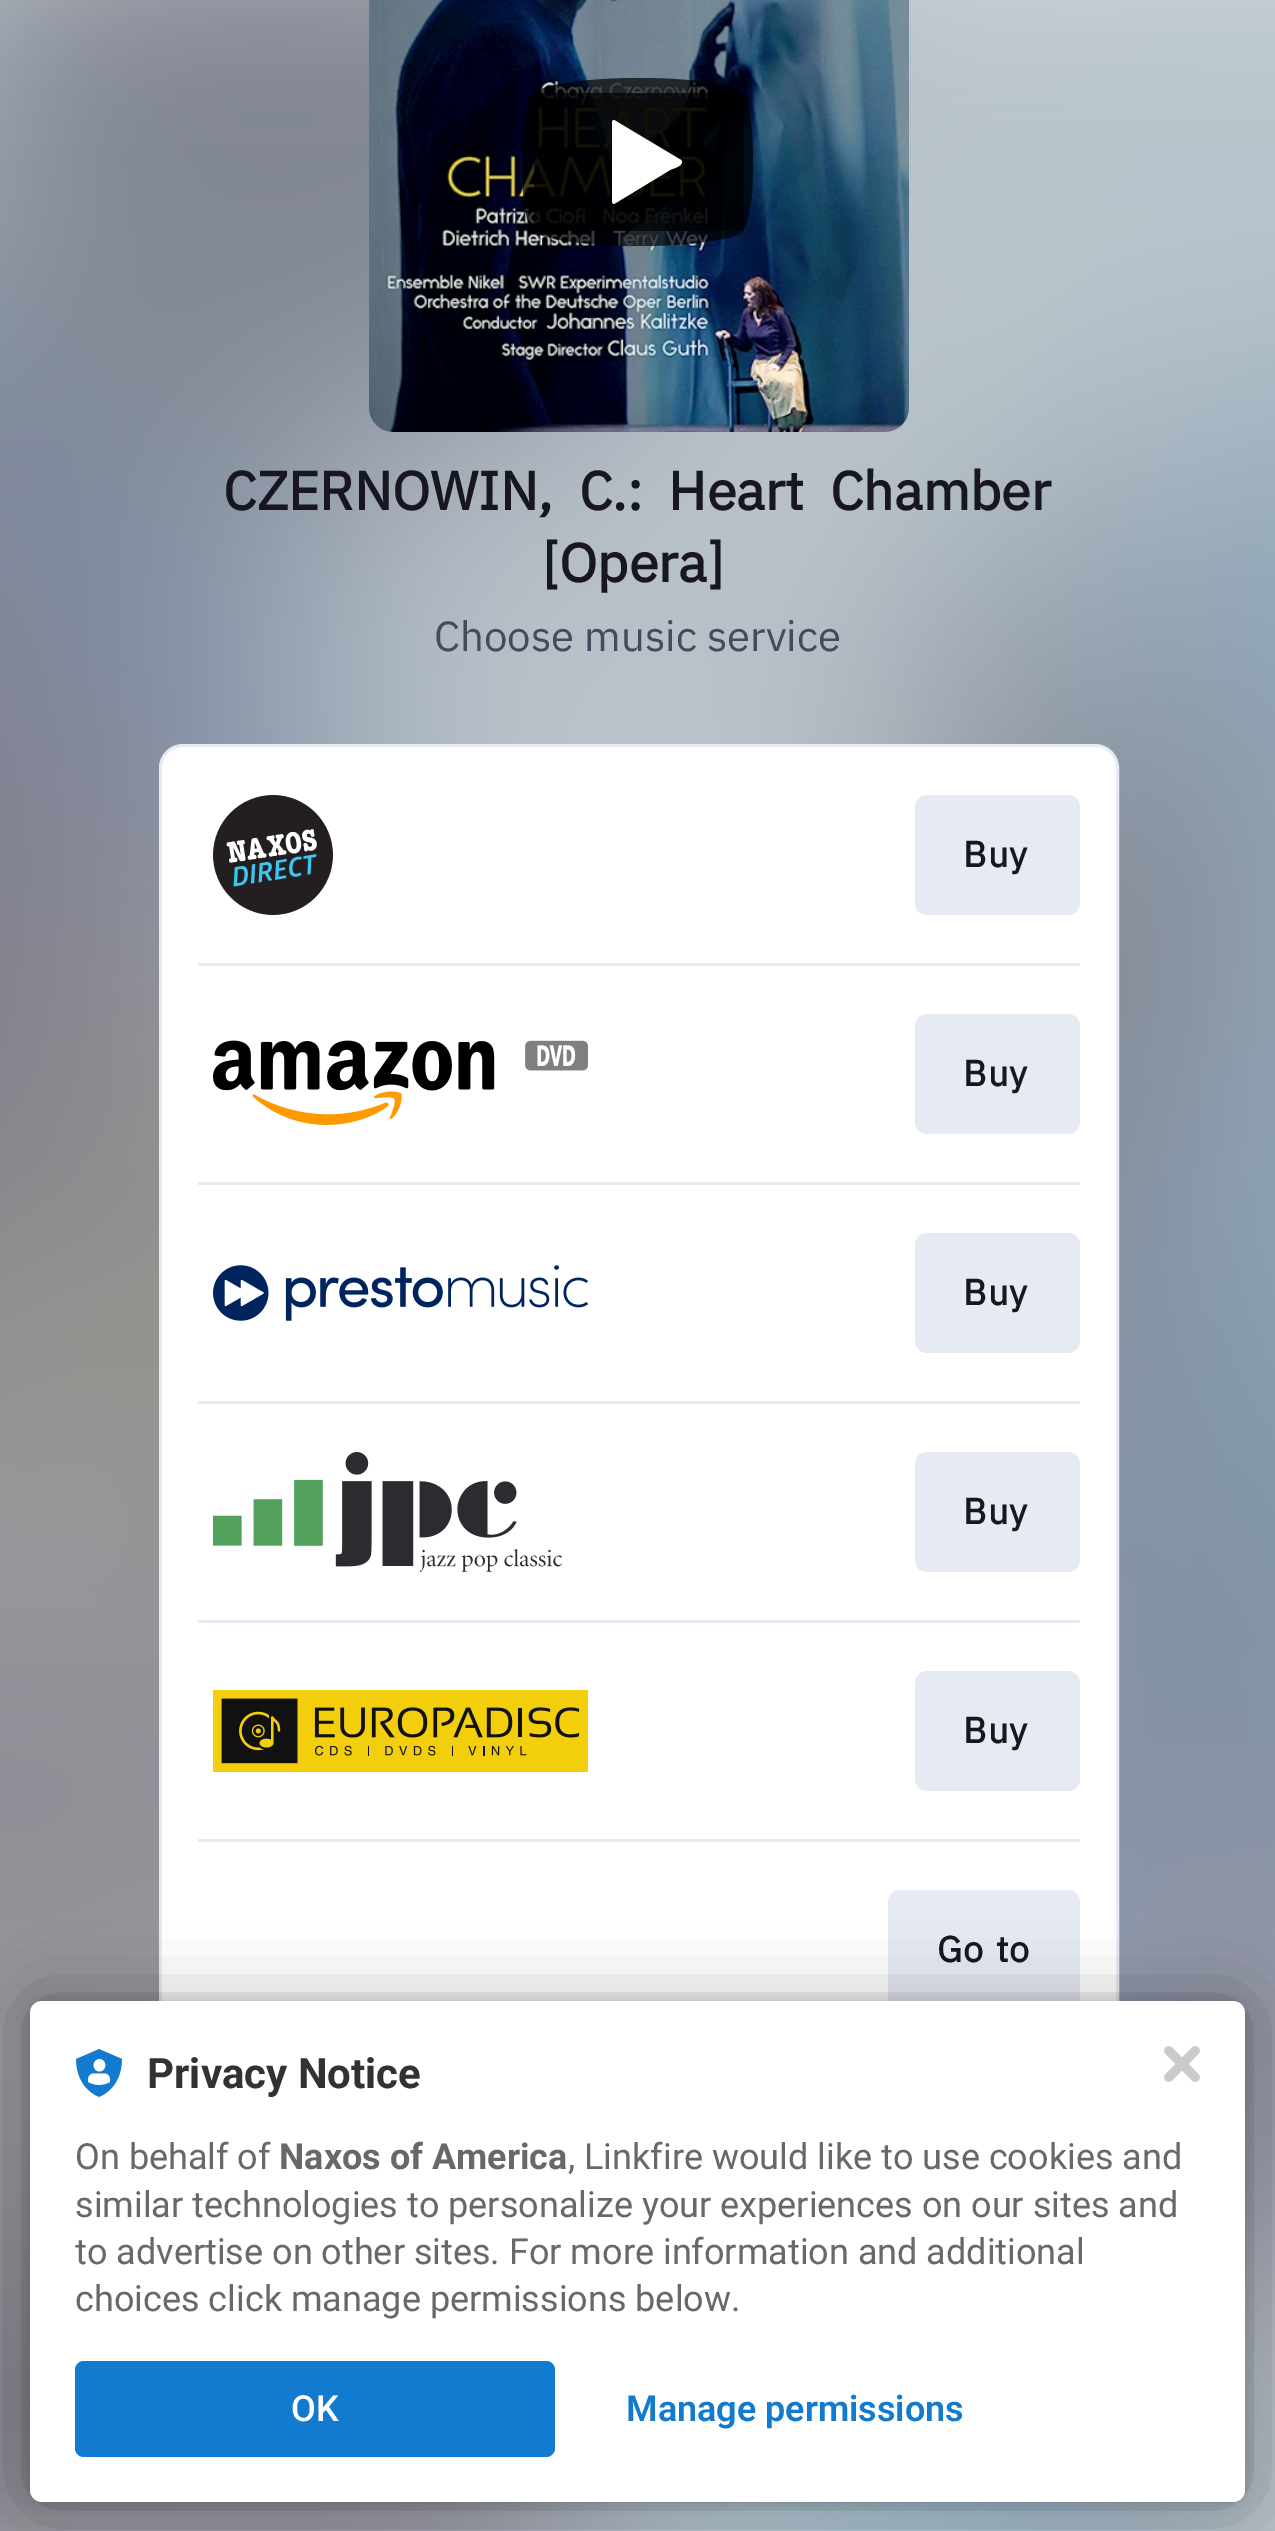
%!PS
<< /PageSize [1275 2531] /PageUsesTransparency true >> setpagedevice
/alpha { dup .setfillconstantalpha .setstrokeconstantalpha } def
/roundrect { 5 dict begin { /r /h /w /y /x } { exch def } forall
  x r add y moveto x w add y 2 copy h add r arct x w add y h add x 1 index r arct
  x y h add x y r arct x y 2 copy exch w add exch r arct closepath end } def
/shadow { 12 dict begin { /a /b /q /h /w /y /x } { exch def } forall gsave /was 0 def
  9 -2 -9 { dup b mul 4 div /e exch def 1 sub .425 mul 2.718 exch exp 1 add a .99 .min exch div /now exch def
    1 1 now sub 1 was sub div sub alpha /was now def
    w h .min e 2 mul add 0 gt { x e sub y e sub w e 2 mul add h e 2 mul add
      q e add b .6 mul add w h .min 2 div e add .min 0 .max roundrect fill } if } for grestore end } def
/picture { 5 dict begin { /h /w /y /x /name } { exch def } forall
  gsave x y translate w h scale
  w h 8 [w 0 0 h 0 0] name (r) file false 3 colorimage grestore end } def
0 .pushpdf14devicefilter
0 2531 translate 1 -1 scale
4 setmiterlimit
1 setgray
0 0 1275 2531 rectfill
(img1.rgb) 0 0 1275 2531 picture
(img2.rgb) 369 0 540 432 picture
0.7 alpha
0 setgray
newpath 639 78 moveto 697 78 744 86 744 95 curveto 744 229 lineto 744 238 697 246 639 246 curveto 581 246 534 238 534 229 curveto 534 95 lineto 534 86 581 78 639 78 curveto closepath fill
newpath 534 93 moveto 741 93 lineto 748 93 753 124 753 162 curveto 753 200 748 231 741 231 curveto 534 231 lineto 527 231 522 200 522 162 curveto 522 124 527 93 534 93 curveto closepath fill
1 alpha
1 setgray
newpath 681 160 moveto 614 120 lineto 613 120 612 121 612 122 curveto 612 202 lineto 613 204 lineto 614 204 lineto 670 170 lineto 674 168 681 167 682 162 curveto 682 162 682 161 681 160 curveto closepath fill
/IBMPlexSans-Bold [54 0 0 -54 0 0] selectfont
0.094 0.09 0.129 setrgbcolor
223 510 moveto 13 0 32 (CZERNOWIN, C.: Heart Chamber) widthshow
542 582 moveto ([Opera]) show
/IBMPlexSans-Regular [42 0 0 -42 0 0] selectfont
0.271 0.294 0.373 setrgbcolor
434 651 moveto (Choose music service) show
0.902 0.918 0.949 setrgbcolor
3 setlinewidth
160.5 745.5 957 1533 22.5 roundrect stroke
1 setgray
162 747 954 1530 21 roundrect fill
(img3.rgb) 213 795 120 120 picture
0.902 0.918 0.949 setrgbcolor
915 795 165 120 12 roundrect fill
/IBMPlexSans-Bold [36 0 0 -36 0 0] selectfont
0.094 0.09 0.129 setrgbcolor
963 867 moveto 1 0 (Buy) ashow
0.902 0.918 0.949 setrgbcolor
198 963 882 3 rectfill
(img4.rgb) 213 1040 375 85 picture
915 1014 165 120 12 roundrect fill
0.094 0.09 0.129 setrgbcolor
963 1086 moveto 1 0 (Buy) ashow
0.902 0.918 0.949 setrgbcolor
198 1182 882 3 rectfill
(img5.rgb) 213 1265 375 56 picture
915 1233 165 120 12 roundrect fill
0.094 0.09 0.129 setrgbcolor
963 1305 moveto 1 0 (Buy) ashow
0.902 0.918 0.949 setrgbcolor
198 1401 882 3 rectfill
(img6.rgb) 213 1452 349 120 picture
915 1452 165 120 12 roundrect fill
0.094 0.09 0.129 setrgbcolor
963 1524 moveto 1 0 (Buy) ashow
0.902 0.918 0.949 setrgbcolor
198 1620 882 3 rectfill
(img7.rgb) 213 1690 375 82 picture
915 1671 165 120 12 roundrect fill
0.094 0.09 0.129 setrgbcolor
963 1743 moveto 1 0 (Buy) ashow
0.902 0.918 0.949 setrgbcolor
198 1839 882 3 rectfill
888 1890 192 120 12 roundrect fill
0.094 0.09 0.129 setrgbcolor
937 1962 moveto 2 0 32 1 0 (Go to) awidthshow
0 setgray
30 2001 1215 501 12 6 0.12 shadow
30 2001 1215 501 12 36 0.3 shadow
1 setgray
30 2001 1215 501 12 roundrect fill
(img8.rgb) 76 2049 46 48 picture
/Roboto-Bold [42 0 0 -42 0 0] selectfont
0.196 setgray
147 2088 moveto (Privacy Notice) show
/Roboto-Regular [36 0 0 -36 0 0] selectfont
0.408 setgray
75 2169 moveto (On behalf of) show
/Roboto-Bold [36 0 0 -36 0 0] selectfont
279 2169 moveto (Naxos of America) show
/Roboto-Regular [36 0 0 -36 0 0] selectfont
568 2169 moveto (, Linkfire would like to use cookies and) show
75 2217 moveto (similar technologies to personalize your experiences on our sites and) show
75 2264 moveto (to advertise on other sites. For more information and additional) show
75 2311 moveto (choices click manage permissions below.) show
0.075 0.482 0.812 setrgbcolor
75 2361 480 96 9 roundrect fill
/Roboto-Medium [36 0 0 -36 0 0] selectfont
1 setgray
291 2421 moveto (OK) show
/Roboto-SemiBold [36 0 0 -36 0 0] selectfont
0.075 0.482 0.812 setrgbcolor
626 2421 moveto (Manage permissions) show
(img9.rgb) 1164 2046 36 36 picture
.poppdf14devicefilter showpage
